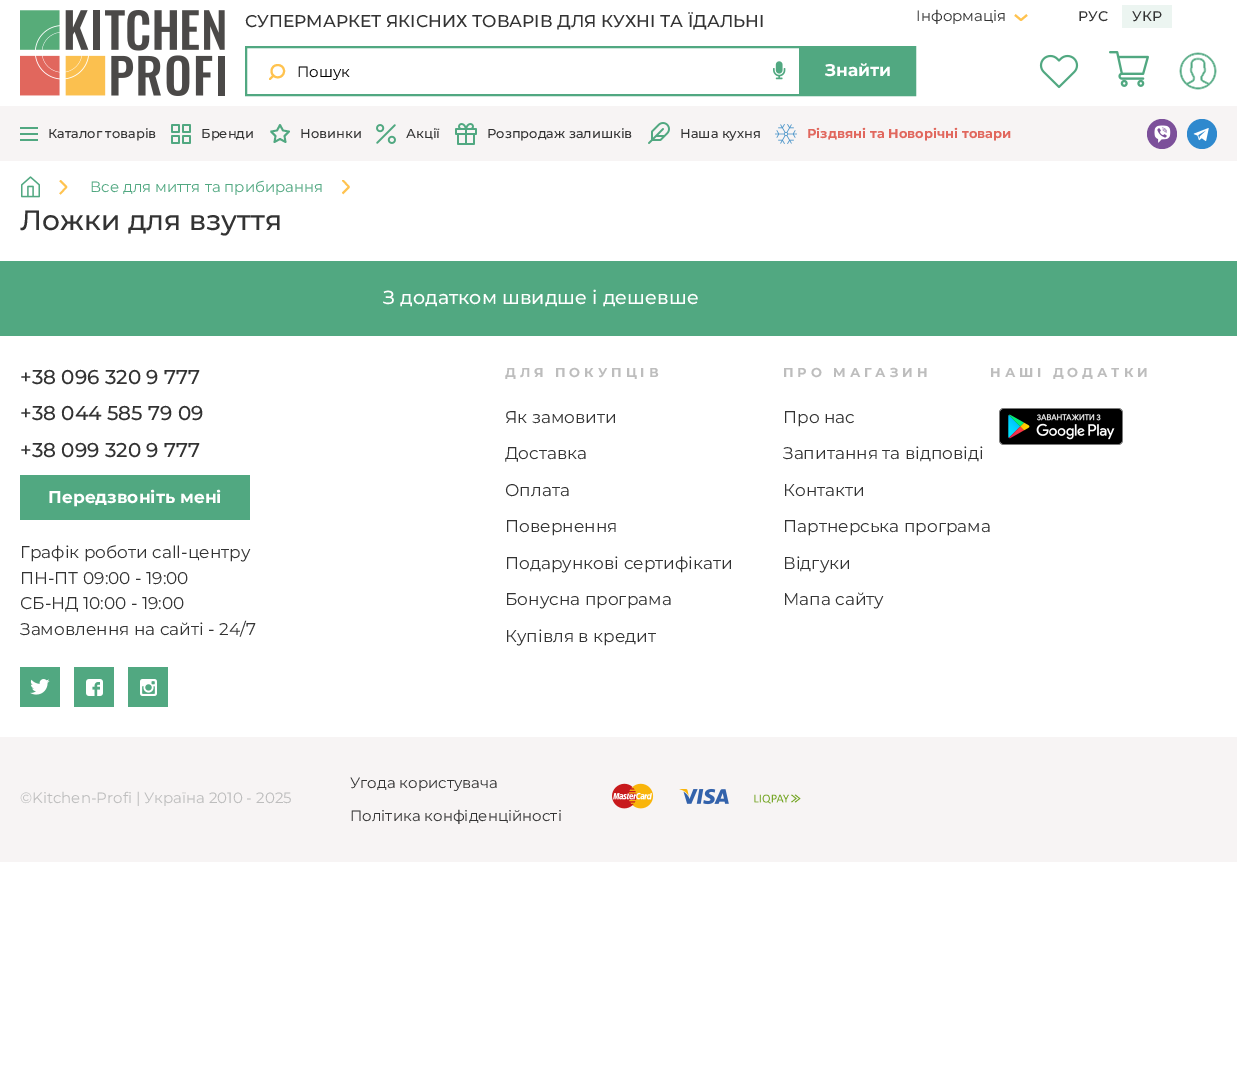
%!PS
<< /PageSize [1237 1081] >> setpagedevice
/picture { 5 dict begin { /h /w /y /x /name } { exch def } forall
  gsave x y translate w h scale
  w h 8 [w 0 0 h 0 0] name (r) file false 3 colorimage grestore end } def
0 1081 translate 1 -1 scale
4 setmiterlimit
1 setgray
0 0 1237 1081 rectfill
(img1.rgb) 20 10 205 86 picture
/Montserrat-Medium [17 0 0 -17 0 0] selectfont
0.2 setgray
245 27 moveto (СУПЕРМАРКЕТ ЯКІСНИХ ТОВАРІВ ДЛЯ КУХНІ ТА ЇДАЛЬНІ) show
0.318 0.659 0.506 setrgbcolor
2 setlinewidth
246 47 669 48 rectstroke
1 0.765 0.31 setrgbcolor
1 setlinecap
1 setlinejoin
newpath 270 79 moveto 273.5 75.5 lineto 271.5 71 moveto 271.5 79.5 284 79.5 284 71 curveto 284 63 271.5 63 271.5 71 curveto closepath stroke
/Montserrat-Regular [15 0 0 -15 0 0] selectfont
0 setgray
297 77 moveto (Пошук) show
(img2.rgb) 773 61 13 19 picture
0.318 0.659 0.506 setrgbcolor
799 48 115 46 rectfill
/Montserrat-Bold [17 0 0 -17 0 0] selectfont
1 setgray
825 76 moveto (Знайти) show
/Montserrat-Regular [15 0 0 -15 0 0] selectfont
0.2 setgray
916 21 moveto (Інформація) show
1 0.765 0.31 setrgbcolor
0 setlinecap
newpath 1015 15 moveto 1021 20 lineto 1027 15 lineto stroke
/Montserrat-Medium [14 0 0 -14 0 0] selectfont
0.2 setgray
1078 21 moveto (РУС) show
0.925 0.961 0.945 setrgbcolor
1122 5 50 23 rectfill
0.2 setgray
1132 21 moveto (УКР) show
(img3.rgb) 1039 54 40 35 picture
(img4.rgb) 1109 51 40 36 picture
(img5.rgb) 1179 52 38 38 picture
0.969 0.957 0.957 setrgbcolor
0 106 1237 55 rectfill
0.318 0.659 0.506 setrgbcolor
20 127 18 2 rectfill
20 133 18 2 rectfill
20 139 18 2 rectfill
/Montserrat-Medium [13 0 0 -13 0 0] selectfont
0.2 setgray
48 138 moveto (Каталог товарів) show
(img6.rgb) 171 124 20 20 picture
201 138 moveto (Бренди) show
0.318 0.659 0.506 setrgbcolor
1.8 setlinewidth
1 setlinecap
newpath 280 125 moveto 283 130.5 lineto 289 131.5 lineto 284.5 136 lineto 285.5 142 lineto 280 139 lineto 274.5 142 lineto 275.5 136 lineto 271 131.5 lineto 277 130.5 lineto closepath stroke
0.2 setgray
300 138 moveto (Новинки) show
(img7.rgb) 376 124 20 20 picture
406 138 moveto (Акції) show
(img8.rgb) 455 123 22 22 picture
487 138 moveto (Розпродаж залишків) show
(img9.rgb) 648 122 22 22 picture
680 138 moveto (Наша кухня) show
(img10.rgb) 775 124 22 20 picture
/Montserrat-Bold [13 0 0 -13 0 0] selectfont
0.882 0.404 0.365 setrgbcolor
807 138 moveto (Різдвяні та Новорічні товари) show
0.486 0.314 0.604 setrgbcolor
newpath 1162 134 15 0 360 arc closepath fill
(img11.rgb) 1154 125 17 18 picture
0.184 0.537 0.808 setrgbcolor
newpath 1202 134 15 0 360 arc closepath fill
(img12.rgb) 1193 128 16 13 picture
(img13.rgb) 21 176 19 22 picture
gsave
newpath 59.5 195 moveto 59.5 180 lineto 67.5 180 lineto 67.5 195 lineto closepath clip newpath
newpath 59.5 195 moveto 59.5 180 lineto 67.5 180 lineto 67.5 195 lineto closepath clip newpath
1 0.765 0.31 setrgbcolor
0 setlinecap
newpath 60 194 moveto 66.5 187 lineto 60 180.5 lineto stroke
grestore
/Montserrat-Regular [15 0 0 -15 0 0] selectfont
0.318 0.659 0.506 setrgbcolor
90 192 moveto (Все для миття та прибирання) show
gsave
newpath 342 195 moveto 342 180 lineto 350 180 lineto 350 195 lineto closepath clip newpath
1 0.765 0.31 setrgbcolor
0 setlinecap
newpath 342.5 193.5 moveto 349 187 lineto 342.5 180 lineto stroke
grestore
/Montserrat-Medium [28 0 0 -28 0 0] selectfont
0.2 setgray
20 230 moveto (Ложки для взуття) show
0.318 0.659 0.506 setrgbcolor
0 261 1237 75 rectfill
/Montserrat-Medium [19 0 0 -19 0 0] selectfont
1 setgray
383 304 moveto (З додатком швидше і дешевше) show
/Montserrat-Medium [20 0 0 -20 0 0] selectfont
0.2 setgray
20 384 moveto (+38 096 320 9 777) show
20 420 moveto (+38 044 585 79 09) show
20 457 moveto (+38 099 320 9 777) show
0.318 0.659 0.506 setrgbcolor
20 475 230 45 rectfill
/Montserrat-Bold [17 0 0 -17 0 0] selectfont
1 setgray
48 503 moveto (Передзвоніть мені) show
/Montserrat-Regular [17 0 0 -17 0 0] selectfont
0.2 setgray
20 558 moveto (Графік роботи call-центру) show
20 584 moveto (ПН-ПТ 09:00 - 19:00) show
20 609 moveto (СБ-НД 10:00 - 19:00) show
20 635 moveto (Замовлення на сайті - 24/7) show
0.318 0.659 0.506 setrgbcolor
20 667 40 40 rectfill
(img14.rgb) 30 679 20 16 picture
74 667 40 40 rectfill
(img15.rgb) 86 679 17 17 picture
128 667 40 40 rectfill
(img16.rgb) 140 679 17 17 picture
/Montserrat-Bold [13 0 0 -13 0 0] selectfont
0.741 setgray
505 377 moveto 3.9 0 (ДЛЯ ПОКУПЦІВ) ashow
/Montserrat-Regular [17 0 0 -17 0 0] selectfont
0.2 setgray
505 423 moveto (Як замовити) show
505 459 moveto (Доставка) show
505 496 moveto (Оплата) show
505 532 moveto (Повернення) show
505 569 moveto (Подарункові сертифікати) show
505 605 moveto (Бонусна програма) show
505 642 moveto (Купівля в кредит) show
/Montserrat-Bold [13 0 0 -13 0 0] selectfont
0.741 setgray
783 377 moveto 3.9 0 (ПРО МАГАЗИН) ashow
/Montserrat-Regular [17 0 0 -17 0 0] selectfont
0.2 setgray
783 423 moveto (Про нас) show
783 459 moveto (Запитання та відповіді) show
783 496 moveto (Контакти) show
783 532 moveto (Партнерська програма) show
783 569 moveto (Відгуки) show
783 605 moveto (Мапа сайту) show
/Montserrat-Bold [13 0 0 -13 0 0] selectfont
0.741 setgray
990 377 moveto 3.9 0 (НАШІ ДОДАТКИ) ashow
(img17.rgb) 999 408 124 37 picture
0.969 0.957 0.957 setrgbcolor
0 737 1237 125 rectfill
/Montserrat-Regular [15 0 0 -15 0 0] selectfont
0.741 setgray
20 803 moveto (©Kitchen-Profi | Україна 2010 - 2025) show
0.2 setgray
350 788 moveto (Угода користувача) show
350 821 moveto (Політика конфіденційності) show
(img18.rgb) 612 783 42 26 picture
(img19.rgb) 679 788 50 17 picture
(img20.rgb) 754 794 47 10 picture
showpage
